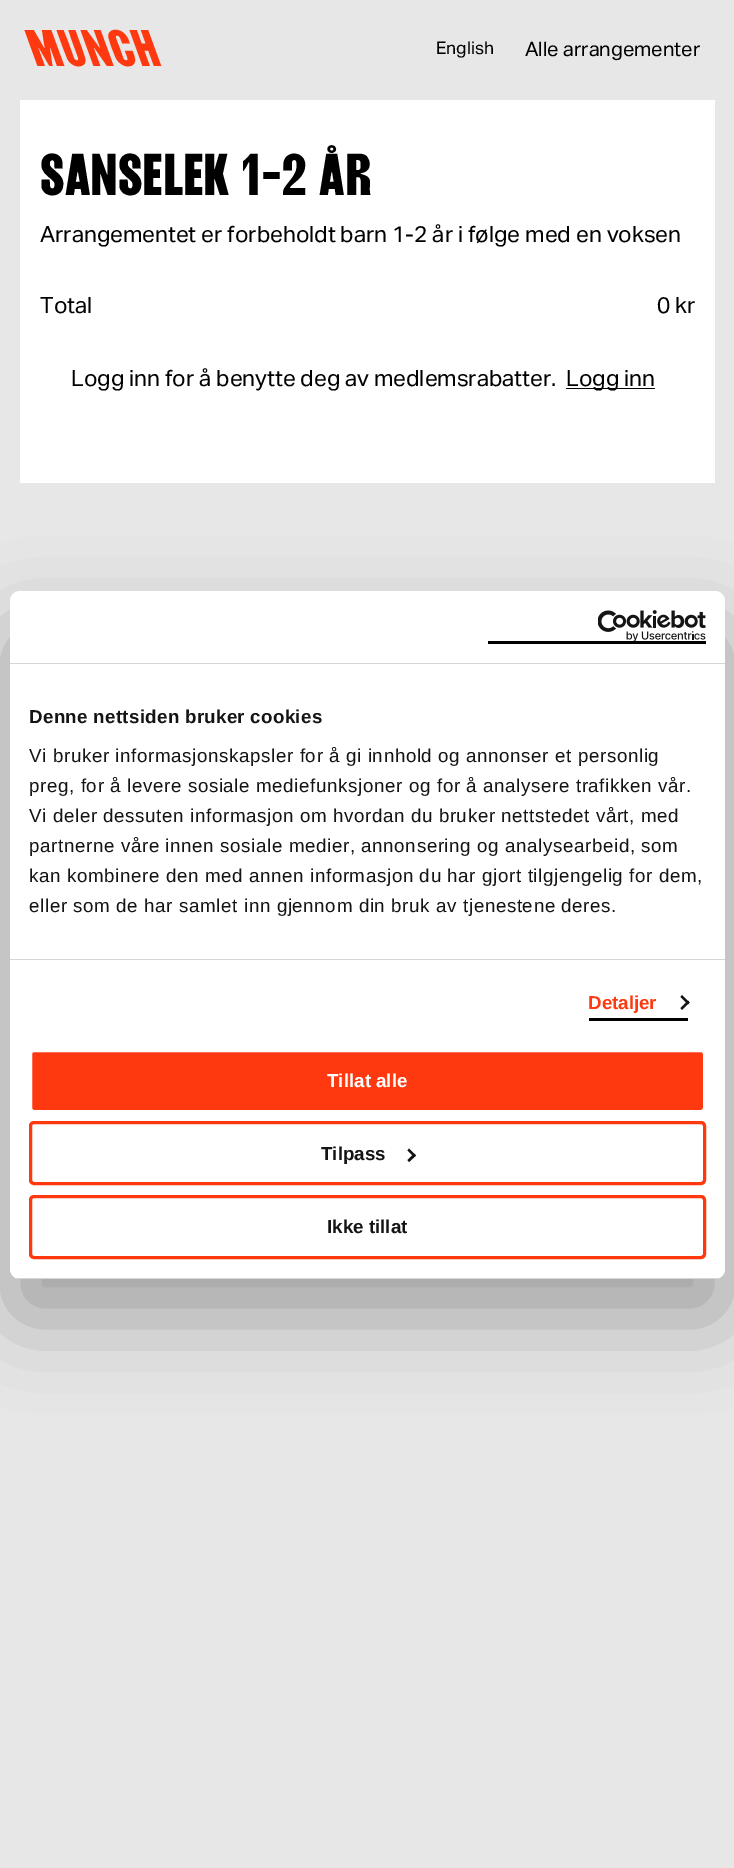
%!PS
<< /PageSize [734 1868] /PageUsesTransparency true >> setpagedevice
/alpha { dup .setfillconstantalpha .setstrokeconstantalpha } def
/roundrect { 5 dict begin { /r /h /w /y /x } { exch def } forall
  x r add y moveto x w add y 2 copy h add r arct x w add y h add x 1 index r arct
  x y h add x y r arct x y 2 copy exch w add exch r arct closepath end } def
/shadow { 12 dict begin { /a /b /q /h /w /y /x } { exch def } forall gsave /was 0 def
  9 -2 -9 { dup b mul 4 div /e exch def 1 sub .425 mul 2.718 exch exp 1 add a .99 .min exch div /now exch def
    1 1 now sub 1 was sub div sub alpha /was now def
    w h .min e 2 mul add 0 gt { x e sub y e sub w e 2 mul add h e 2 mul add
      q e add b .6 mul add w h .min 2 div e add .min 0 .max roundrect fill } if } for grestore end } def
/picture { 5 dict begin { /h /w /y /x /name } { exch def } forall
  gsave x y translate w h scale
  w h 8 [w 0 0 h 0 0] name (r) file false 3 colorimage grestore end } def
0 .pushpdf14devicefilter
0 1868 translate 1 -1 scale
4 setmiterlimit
0.906 setgray
0 0 734 1868 rectfill
/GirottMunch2-Bold [48 0 0 -48 0 0] selectfont
0.996 0.224 0.059 setrgbcolor
35 66 moveto (MUNCH) show
/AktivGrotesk-Regular [17.5 0 0 -17.5 0 0] selectfont
0 setgray
436 54 moveto (English) show
/AktivGrotesk-Regular [20 0 0 -20 0 0] selectfont
525 56 moveto (Alle arrangementer) show
1 setgray
20 100 695 383 rectfill
/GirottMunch-Bold [55 0 0 -55 0 0] selectfont
0 setgray
40 195 moveto (SANSELEK 1-2 ÅR) show
/AktivGrotesk-Regular [22.5 0 0 -22.5 0 0] selectfont
40 242 moveto (Arrangementet er forbeholdt barn 1-2 år i følge med en voksen) show
40 313 moveto (Total) show
657 313 moveto (0 kr) show
71 386 moveto (Logg inn for å benytte deg av medlemsrabatter.) show
566 388 89 1 rectfill
566 386 moveto (Logg inn) show
10 631 715 688 10 42.5 0.3 shadow
1 setgray
10 591 715 688 10 roundrect fill
0.839 setgray
10 663 715 1 rectfill
0 setgray
488 641 218 3 rectfill
(img1.rgb) 598 610 108 31 picture
0.839 setgray
10 959 715 1 rectfill
/LiberationSans-Bold [18.75 0 0 -18.75 0 0] selectfont
0.078 setgray
29 723 moveto 0.3 0 (Denne nettsiden bruker cookies) ashow
/LiberationSans-Regular [18.75 0 0 -18.75 0 0] selectfont
29 762 moveto 0.62 0 (Vi bruker informasjonskapsler for å gi innhold og annonser et personlig) ashow
29 792 moveto 0.62 0 (preg, for å levere sosiale mediefunksjoner og for å analysere trafikken vår.) ashow
29 822 moveto 0.62 0 (Vi deler dessuten informasjon om hvordan du bruker nettstedet vårt, med) ashow
29 852 moveto 0.62 0 (partnerne våre innen sosiale medier, annonsering og analysearbeid, som) ashow
29 882 moveto 0.62 0 (kan kombinere den med annen informasjon du har gjort tilgjengelig for dem,) ashow
29 912 moveto 0.62 0 (eller som de har samlet inn gjennom din bruk av tjenestene deres.) ashow
0 setgray
589 1018 99 3 rectfill
/LiberationSans-Bold [18.75 0 0 -18.75 0 0] selectfont
0.996 0.224 0.059 setrgbcolor
588 1009 moveto (Detaljer) show
0.078 setgray
newpath 682 995 moveto 689.5 1002.5 lineto 688 1004.5 lineto 680.5 997 lineto closepath fill
newpath 688 1000.5 moveto 689.5 1002.5 lineto 682 1010 lineto 680.5 1008 lineto closepath fill
gsave
10 591 715 688 10 roundrect clip newpath
0.839 setgray
10 1278 715 1 rectfill
grestore
0.996 0.224 0.059 setrgbcolor
30.5 1050.5 674 61 3.5 roundrect gsave fill grestore
1 setgray
3 setlinewidth
stroke
327 1087 moveto (Tillat alle) show
0.996 0.224 0.059 setrgbcolor
30.5 1122.5 674 61 3.5 roundrect stroke
0.078 setgray
321 1160 moveto (Tilpass) show
newpath 409 1148.5 moveto 416 1155.5 lineto 414 1157 lineto 407.5 1150.5 lineto closepath fill
newpath 414 1153.5 moveto 416 1155.5 lineto 409 1162 lineto 407.5 1160 lineto closepath fill
0.996 0.224 0.059 setrgbcolor
30.5 1196.5 674 61 3.5 roundrect stroke
0.078 setgray
327 1233 moveto (Ikke tillat) show
.poppdf14devicefilter showpage
